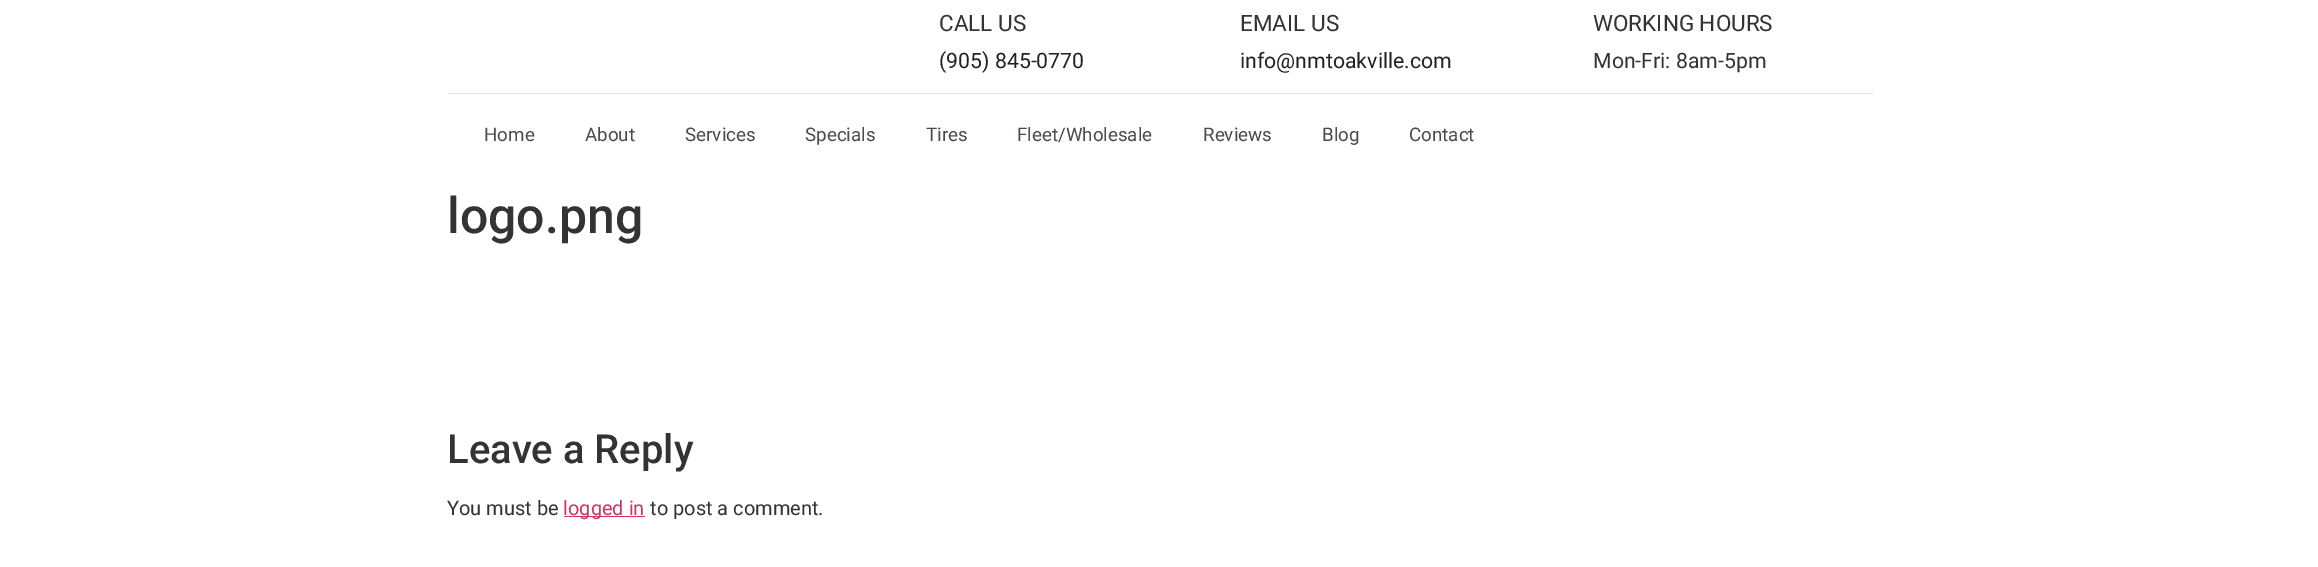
%!PS
<< /PageSize [2318 567] >> setpagedevice
0 567 translate 1 -1 scale
4 setmiterlimit
1 setgray
0 0 2318 567 rectfill
0.882 setgray
448 93 1425 1 rectfill
/Roboto-Regular [22.5 0 0 -22.5 0 0] selectfont
0.2 setgray
939 31 moveto (CALL US) show
/Roboto-Regular [21.25 0 0 -21.25 0 0] selectfont
0.133 setgray
939 68 moveto (\(905\) 845-0770) show
/Roboto-Regular [22.5 0 0 -22.5 0 0] selectfont
0.2 setgray
1240 31 moveto (EMAIL US) show
/Roboto-Regular [21.25 0 0 -21.25 0 0] selectfont
0.133 setgray
1240 68 moveto (info@nmtoakville.com) show
/Roboto-Regular [22.5 0 0 -22.5 0 0] selectfont
0.2 setgray
1593 31 moveto (WORKING HOURS) show
/Roboto-Regular [21.25 0 0 -21.25 0 0] selectfont
1593 68 moveto (Mon-Fri: 8am-5pm) show
/Roboto-Regular [18.75 0 0 -18.75 0 0] selectfont
0.31 0.286 0.286 setrgbcolor
484 141 moveto (Home) show
585 141 moveto (About) show
685 141 moveto (Services) show
805 141 moveto (Specials) show
926 141 moveto (Tires) show
1017 141 moveto (Fleet/Wholesale) show
1203 141 moveto (Reviews) show
1322 141 moveto (Blog) show
1409 141 moveto (Contact) show
/Roboto-Medium [50 0 0 -50 0 0] selectfont
0.2 setgray
447 233 moveto (logo.png) show
/Roboto-Medium [40 0 0 -40 0 0] selectfont
447 463 moveto (Leave a Reply) show
/Roboto-Regular [20 0 0 -20 0 0] selectfont
447 515 moveto (You must be) show
0.8 0.2 0.4 setrgbcolor
564 516 81 1 rectfill
563 515 moveto (logged in) show
0.2 setgray
650 515 moveto (to post a comment.) show
showpage
